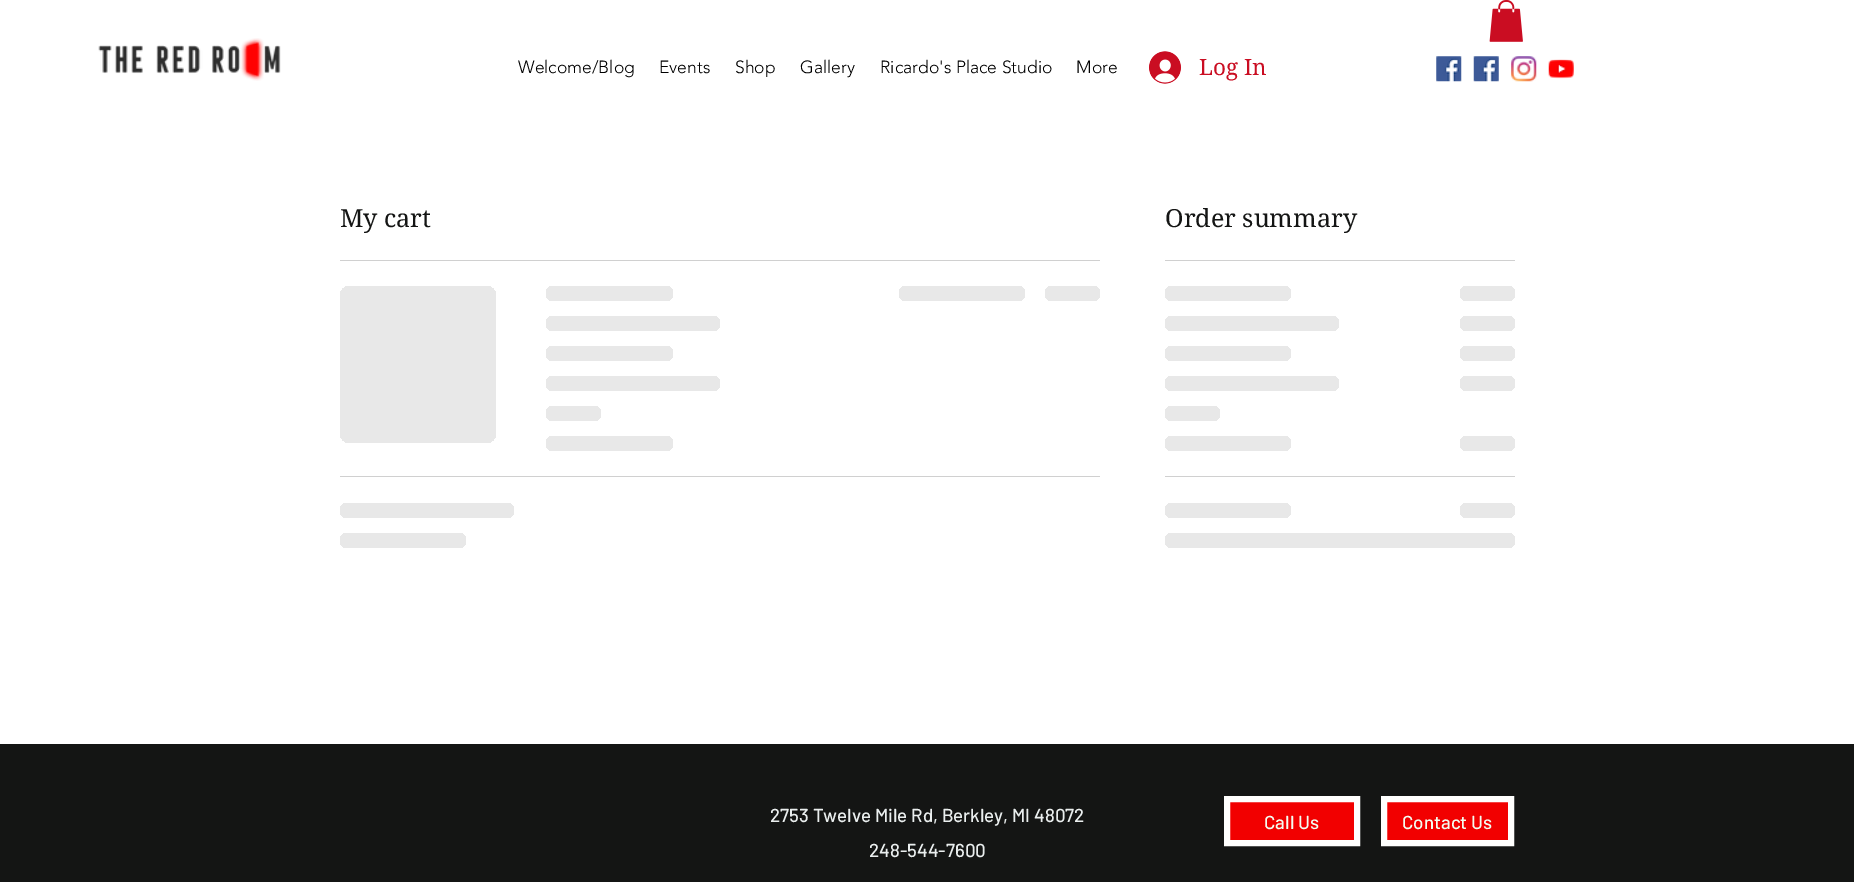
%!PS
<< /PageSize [1854 882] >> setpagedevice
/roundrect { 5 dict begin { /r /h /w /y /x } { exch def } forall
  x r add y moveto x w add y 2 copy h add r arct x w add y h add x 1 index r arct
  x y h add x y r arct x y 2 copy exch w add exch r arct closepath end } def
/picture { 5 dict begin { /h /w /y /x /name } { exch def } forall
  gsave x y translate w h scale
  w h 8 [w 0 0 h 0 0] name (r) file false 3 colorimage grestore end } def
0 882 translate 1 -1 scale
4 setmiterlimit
1 setgray
0 0 1854 882 rectfill
(img1.rgb) 1489 0 34 42 picture
(img2.rgb) 98 38 183 43 picture
/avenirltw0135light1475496-Light [17.5 0 0 -17.5 0 0] selectfont
0 setgray
518 73 moveto (Welcome/Blog) show
659 73 moveto (Events) show
735 73 moveto (Shop) show
800 73 moveto (Gallery) show
880 73 moveto (Ricardo's Place Studio) show
1076 73 moveto (More) show
(img3.rgb) 1436 56 26 26 picture
(img4.rgb) 1473 56 26 26 picture
(img5.rgb) 1511 56 26 26 picture
(img6.rgb) 1548 59 26 20 picture
(img7.rgb) 1149 51 32 33 picture
/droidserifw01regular-Regular [22.5 0 0 -22.5 0 0] selectfont
0.792 0.051 0.133 setrgbcolor
1199 75 moveto (Log In) show
0.816 setgray
340 260 760 1 rectfill
/droidserifw01regular-Regular [25 0 0 -25 0 0] selectfont
0.078 0.082 0.078 setrgbcolor
340 227 moveto (My cart) show
gsave 340 286 156 157 10 roundrect clip newpath
<< /ShadingType 2 /ColorSpace /DeviceRGB /Coords [340 364 965 364] /Extend [true true] /Function << /FunctionType 3 /Domain [0 1] /Functions [<< /FunctionType 2 /Domain [0 1] /C0 [0.91 0.91 0.91] /C1 [0.91 0.91 0.91] /N 1 >> << /FunctionType 2 /Domain [0 1] /C0 [0.91 0.91 0.91] /C1 [0.816 0.816 0.816] /N 1 >> << /FunctionType 2 /Domain [0 1] /C0 [0.816 0.816 0.816] /C1 [0.91 0.91 0.91] /N 1 >> << /FunctionType 2 /Domain [0 1] /C0 [0.91 0.91 0.91] /C1 [0.91 0.91 0.91] /N 1 >>] /Bounds [0.25 0.37 0.63] /Encode [0 1 0 1 0 1 0 1] >> >> shfill grestore
gsave 546 286 127 15 7.5 roundrect clip newpath
<< /ShadingType 2 /ColorSpace /DeviceRGB /Coords [546 294 1051 294] /Extend [true true] /Function << /FunctionType 3 /Domain [0 1] /Functions [<< /FunctionType 2 /Domain [0 1] /C0 [0.91 0.91 0.91] /C1 [0.91 0.91 0.91] /N 1 >> << /FunctionType 2 /Domain [0 1] /C0 [0.91 0.91 0.91] /C1 [0.816 0.816 0.816] /N 1 >> << /FunctionType 2 /Domain [0 1] /C0 [0.816 0.816 0.816] /C1 [0.91 0.91 0.91] /N 1 >> << /FunctionType 2 /Domain [0 1] /C0 [0.91 0.91 0.91] /C1 [0.91 0.91 0.91] /N 1 >>] /Bounds [0.25 0.37 0.63] /Encode [0 1 0 1 0 1 0 1] >> >> shfill grestore
gsave 546 316 174 15 7.5 roundrect clip newpath
<< /ShadingType 2 /ColorSpace /DeviceRGB /Coords [546 324 1241 324] /Extend [true true] /Function << /FunctionType 3 /Domain [0 1] /Functions [<< /FunctionType 2 /Domain [0 1] /C0 [0.91 0.91 0.91] /C1 [0.91 0.91 0.91] /N 1 >> << /FunctionType 2 /Domain [0 1] /C0 [0.91 0.91 0.91] /C1 [0.816 0.816 0.816] /N 1 >> << /FunctionType 2 /Domain [0 1] /C0 [0.816 0.816 0.816] /C1 [0.91 0.91 0.91] /N 1 >> << /FunctionType 2 /Domain [0 1] /C0 [0.91 0.91 0.91] /C1 [0.91 0.91 0.91] /N 1 >>] /Bounds [0.25 0.37 0.63] /Encode [0 1 0 1 0 1 0 1] >> >> shfill grestore
gsave 546 346 127 15 7.5 roundrect clip newpath
<< /ShadingType 2 /ColorSpace /DeviceRGB /Coords [546 354 1051 354] /Extend [true true] /Function << /FunctionType 3 /Domain [0 1] /Functions [<< /FunctionType 2 /Domain [0 1] /C0 [0.91 0.91 0.91] /C1 [0.91 0.91 0.91] /N 1 >> << /FunctionType 2 /Domain [0 1] /C0 [0.91 0.91 0.91] /C1 [0.816 0.816 0.816] /N 1 >> << /FunctionType 2 /Domain [0 1] /C0 [0.816 0.816 0.816] /C1 [0.91 0.91 0.91] /N 1 >> << /FunctionType 2 /Domain [0 1] /C0 [0.91 0.91 0.91] /C1 [0.91 0.91 0.91] /N 1 >>] /Bounds [0.25 0.37 0.63] /Encode [0 1 0 1 0 1 0 1] >> >> shfill grestore
gsave 546 376 174 15 7.5 roundrect clip newpath
<< /ShadingType 2 /ColorSpace /DeviceRGB /Coords [546 384 1241 384] /Extend [true true] /Function << /FunctionType 3 /Domain [0 1] /Functions [<< /FunctionType 2 /Domain [0 1] /C0 [0.91 0.91 0.91] /C1 [0.91 0.91 0.91] /N 1 >> << /FunctionType 2 /Domain [0 1] /C0 [0.91 0.91 0.91] /C1 [0.816 0.816 0.816] /N 1 >> << /FunctionType 2 /Domain [0 1] /C0 [0.816 0.816 0.816] /C1 [0.91 0.91 0.91] /N 1 >> << /FunctionType 2 /Domain [0 1] /C0 [0.91 0.91 0.91] /C1 [0.91 0.91 0.91] /N 1 >>] /Bounds [0.25 0.37 0.63] /Encode [0 1 0 1 0 1 0 1] >> >> shfill grestore
gsave 546 406 55 15 7.5 roundrect clip newpath
<< /ShadingType 2 /ColorSpace /DeviceRGB /Coords [546 414 766 414] /Extend [true true] /Function << /FunctionType 3 /Domain [0 1] /Functions [<< /FunctionType 2 /Domain [0 1] /C0 [0.91 0.91 0.91] /C1 [0.91 0.91 0.91] /N 1 >> << /FunctionType 2 /Domain [0 1] /C0 [0.91 0.91 0.91] /C1 [0.816 0.816 0.816] /N 1 >> << /FunctionType 2 /Domain [0 1] /C0 [0.816 0.816 0.816] /C1 [0.91 0.91 0.91] /N 1 >> << /FunctionType 2 /Domain [0 1] /C0 [0.91 0.91 0.91] /C1 [0.91 0.91 0.91] /N 1 >>] /Bounds [0.25 0.37 0.63] /Encode [0 1 0 1 0 1 0 1] >> >> shfill grestore
gsave 546 436 127 15 7.5 roundrect clip newpath
<< /ShadingType 2 /ColorSpace /DeviceRGB /Coords [546 444 1051 444] /Extend [true true] /Function << /FunctionType 3 /Domain [0 1] /Functions [<< /FunctionType 2 /Domain [0 1] /C0 [0.91 0.91 0.91] /C1 [0.91 0.91 0.91] /N 1 >> << /FunctionType 2 /Domain [0 1] /C0 [0.91 0.91 0.91] /C1 [0.816 0.816 0.816] /N 1 >> << /FunctionType 2 /Domain [0 1] /C0 [0.816 0.816 0.816] /C1 [0.91 0.91 0.91] /N 1 >> << /FunctionType 2 /Domain [0 1] /C0 [0.91 0.91 0.91] /C1 [0.91 0.91 0.91] /N 1 >>] /Bounds [0.25 0.37 0.63] /Encode [0 1 0 1 0 1 0 1] >> >> shfill grestore
gsave 899 286 126 15 7.5 roundrect clip newpath
<< /ShadingType 2 /ColorSpace /DeviceRGB /Coords [899 294 1404 294] /Extend [true true] /Function << /FunctionType 3 /Domain [0 1] /Functions [<< /FunctionType 2 /Domain [0 1] /C0 [0.91 0.91 0.91] /C1 [0.91 0.91 0.91] /N 1 >> << /FunctionType 2 /Domain [0 1] /C0 [0.91 0.91 0.91] /C1 [0.816 0.816 0.816] /N 1 >> << /FunctionType 2 /Domain [0 1] /C0 [0.816 0.816 0.816] /C1 [0.91 0.91 0.91] /N 1 >> << /FunctionType 2 /Domain [0 1] /C0 [0.91 0.91 0.91] /C1 [0.91 0.91 0.91] /N 1 >>] /Bounds [0.25 0.37 0.63] /Encode [0 1 0 1 0 1 0 1] >> >> shfill grestore
gsave 1045 286 55 15 7.5 roundrect clip newpath
<< /ShadingType 2 /ColorSpace /DeviceRGB /Coords [1045 294 1265 294] /Extend [true true] /Function << /FunctionType 3 /Domain [0 1] /Functions [<< /FunctionType 2 /Domain [0 1] /C0 [0.91 0.91 0.91] /C1 [0.91 0.91 0.91] /N 1 >> << /FunctionType 2 /Domain [0 1] /C0 [0.91 0.91 0.91] /C1 [0.816 0.816 0.816] /N 1 >> << /FunctionType 2 /Domain [0 1] /C0 [0.816 0.816 0.816] /C1 [0.91 0.91 0.91] /N 1 >> << /FunctionType 2 /Domain [0 1] /C0 [0.91 0.91 0.91] /C1 [0.91 0.91 0.91] /N 1 >>] /Bounds [0.25 0.37 0.63] /Encode [0 1 0 1 0 1 0 1] >> >> shfill grestore
0.816 setgray
340 476 760 1 rectfill
gsave 340 503 174 15 7.5 roundrect clip newpath
<< /ShadingType 2 /ColorSpace /DeviceRGB /Coords [340 510 1035 510] /Extend [true true] /Function << /FunctionType 3 /Domain [0 1] /Functions [<< /FunctionType 2 /Domain [0 1] /C0 [0.91 0.91 0.91] /C1 [0.91 0.91 0.91] /N 1 >> << /FunctionType 2 /Domain [0 1] /C0 [0.91 0.91 0.91] /C1 [0.816 0.816 0.816] /N 1 >> << /FunctionType 2 /Domain [0 1] /C0 [0.816 0.816 0.816] /C1 [0.91 0.91 0.91] /N 1 >> << /FunctionType 2 /Domain [0 1] /C0 [0.91 0.91 0.91] /C1 [0.91 0.91 0.91] /N 1 >>] /Bounds [0.25 0.37 0.63] /Encode [0 1 0 1 0 1 0 1] >> >> shfill grestore
gsave 340 533 126 15 7.5 roundrect clip newpath
<< /ShadingType 2 /ColorSpace /DeviceRGB /Coords [340 540 845 540] /Extend [true true] /Function << /FunctionType 3 /Domain [0 1] /Functions [<< /FunctionType 2 /Domain [0 1] /C0 [0.91 0.91 0.91] /C1 [0.91 0.91 0.91] /N 1 >> << /FunctionType 2 /Domain [0 1] /C0 [0.91 0.91 0.91] /C1 [0.816 0.816 0.816] /N 1 >> << /FunctionType 2 /Domain [0 1] /C0 [0.816 0.816 0.816] /C1 [0.91 0.91 0.91] /N 1 >> << /FunctionType 2 /Domain [0 1] /C0 [0.91 0.91 0.91] /C1 [0.91 0.91 0.91] /N 1 >>] /Bounds [0.25 0.37 0.63] /Encode [0 1 0 1 0 1 0 1] >> >> shfill grestore
1165 260 350 1 rectfill
0.078 0.082 0.078 setrgbcolor
1165 227 moveto (Order summary) show
gsave 1165 286 126 15 7.5 roundrect clip newpath
<< /ShadingType 2 /ColorSpace /DeviceRGB /Coords [1165 294 1670 294] /Extend [true true] /Function << /FunctionType 3 /Domain [0 1] /Functions [<< /FunctionType 2 /Domain [0 1] /C0 [0.91 0.91 0.91] /C1 [0.91 0.91 0.91] /N 1 >> << /FunctionType 2 /Domain [0 1] /C0 [0.91 0.91 0.91] /C1 [0.816 0.816 0.816] /N 1 >> << /FunctionType 2 /Domain [0 1] /C0 [0.816 0.816 0.816] /C1 [0.91 0.91 0.91] /N 1 >> << /FunctionType 2 /Domain [0 1] /C0 [0.91 0.91 0.91] /C1 [0.91 0.91 0.91] /N 1 >>] /Bounds [0.25 0.37 0.63] /Encode [0 1 0 1 0 1 0 1] >> >> shfill grestore
gsave 1460 286 55 15 7.5 roundrect clip newpath
<< /ShadingType 2 /ColorSpace /DeviceRGB /Coords [1460 294 1680 294] /Extend [true true] /Function << /FunctionType 3 /Domain [0 1] /Functions [<< /FunctionType 2 /Domain [0 1] /C0 [0.91 0.91 0.91] /C1 [0.91 0.91 0.91] /N 1 >> << /FunctionType 2 /Domain [0 1] /C0 [0.91 0.91 0.91] /C1 [0.816 0.816 0.816] /N 1 >> << /FunctionType 2 /Domain [0 1] /C0 [0.816 0.816 0.816] /C1 [0.91 0.91 0.91] /N 1 >> << /FunctionType 2 /Domain [0 1] /C0 [0.91 0.91 0.91] /C1 [0.91 0.91 0.91] /N 1 >>] /Bounds [0.25 0.37 0.63] /Encode [0 1 0 1 0 1 0 1] >> >> shfill grestore
gsave 1165 316 174 15 7.5 roundrect clip newpath
<< /ShadingType 2 /ColorSpace /DeviceRGB /Coords [1165 324 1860 324] /Extend [true true] /Function << /FunctionType 3 /Domain [0 1] /Functions [<< /FunctionType 2 /Domain [0 1] /C0 [0.91 0.91 0.91] /C1 [0.91 0.91 0.91] /N 1 >> << /FunctionType 2 /Domain [0 1] /C0 [0.91 0.91 0.91] /C1 [0.816 0.816 0.816] /N 1 >> << /FunctionType 2 /Domain [0 1] /C0 [0.816 0.816 0.816] /C1 [0.91 0.91 0.91] /N 1 >> << /FunctionType 2 /Domain [0 1] /C0 [0.91 0.91 0.91] /C1 [0.91 0.91 0.91] /N 1 >>] /Bounds [0.25 0.37 0.63] /Encode [0 1 0 1 0 1 0 1] >> >> shfill grestore
gsave 1460 316 55 15 7.5 roundrect clip newpath
<< /ShadingType 2 /ColorSpace /DeviceRGB /Coords [1460 324 1680 324] /Extend [true true] /Function << /FunctionType 3 /Domain [0 1] /Functions [<< /FunctionType 2 /Domain [0 1] /C0 [0.91 0.91 0.91] /C1 [0.91 0.91 0.91] /N 1 >> << /FunctionType 2 /Domain [0 1] /C0 [0.91 0.91 0.91] /C1 [0.816 0.816 0.816] /N 1 >> << /FunctionType 2 /Domain [0 1] /C0 [0.816 0.816 0.816] /C1 [0.91 0.91 0.91] /N 1 >> << /FunctionType 2 /Domain [0 1] /C0 [0.91 0.91 0.91] /C1 [0.91 0.91 0.91] /N 1 >>] /Bounds [0.25 0.37 0.63] /Encode [0 1 0 1 0 1 0 1] >> >> shfill grestore
gsave 1165 346 126 15 7.5 roundrect clip newpath
<< /ShadingType 2 /ColorSpace /DeviceRGB /Coords [1165 354 1670 354] /Extend [true true] /Function << /FunctionType 3 /Domain [0 1] /Functions [<< /FunctionType 2 /Domain [0 1] /C0 [0.91 0.91 0.91] /C1 [0.91 0.91 0.91] /N 1 >> << /FunctionType 2 /Domain [0 1] /C0 [0.91 0.91 0.91] /C1 [0.816 0.816 0.816] /N 1 >> << /FunctionType 2 /Domain [0 1] /C0 [0.816 0.816 0.816] /C1 [0.91 0.91 0.91] /N 1 >> << /FunctionType 2 /Domain [0 1] /C0 [0.91 0.91 0.91] /C1 [0.91 0.91 0.91] /N 1 >>] /Bounds [0.25 0.37 0.63] /Encode [0 1 0 1 0 1 0 1] >> >> shfill grestore
gsave 1460 346 55 15 7.5 roundrect clip newpath
<< /ShadingType 2 /ColorSpace /DeviceRGB /Coords [1460 354 1680 354] /Extend [true true] /Function << /FunctionType 3 /Domain [0 1] /Functions [<< /FunctionType 2 /Domain [0 1] /C0 [0.91 0.91 0.91] /C1 [0.91 0.91 0.91] /N 1 >> << /FunctionType 2 /Domain [0 1] /C0 [0.91 0.91 0.91] /C1 [0.816 0.816 0.816] /N 1 >> << /FunctionType 2 /Domain [0 1] /C0 [0.816 0.816 0.816] /C1 [0.91 0.91 0.91] /N 1 >> << /FunctionType 2 /Domain [0 1] /C0 [0.91 0.91 0.91] /C1 [0.91 0.91 0.91] /N 1 >>] /Bounds [0.25 0.37 0.63] /Encode [0 1 0 1 0 1 0 1] >> >> shfill grestore
gsave 1165 376 174 15 7.5 roundrect clip newpath
<< /ShadingType 2 /ColorSpace /DeviceRGB /Coords [1165 384 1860 384] /Extend [true true] /Function << /FunctionType 3 /Domain [0 1] /Functions [<< /FunctionType 2 /Domain [0 1] /C0 [0.91 0.91 0.91] /C1 [0.91 0.91 0.91] /N 1 >> << /FunctionType 2 /Domain [0 1] /C0 [0.91 0.91 0.91] /C1 [0.816 0.816 0.816] /N 1 >> << /FunctionType 2 /Domain [0 1] /C0 [0.816 0.816 0.816] /C1 [0.91 0.91 0.91] /N 1 >> << /FunctionType 2 /Domain [0 1] /C0 [0.91 0.91 0.91] /C1 [0.91 0.91 0.91] /N 1 >>] /Bounds [0.25 0.37 0.63] /Encode [0 1 0 1 0 1 0 1] >> >> shfill grestore
gsave 1460 376 55 15 7.5 roundrect clip newpath
<< /ShadingType 2 /ColorSpace /DeviceRGB /Coords [1460 384 1680 384] /Extend [true true] /Function << /FunctionType 3 /Domain [0 1] /Functions [<< /FunctionType 2 /Domain [0 1] /C0 [0.91 0.91 0.91] /C1 [0.91 0.91 0.91] /N 1 >> << /FunctionType 2 /Domain [0 1] /C0 [0.91 0.91 0.91] /C1 [0.816 0.816 0.816] /N 1 >> << /FunctionType 2 /Domain [0 1] /C0 [0.816 0.816 0.816] /C1 [0.91 0.91 0.91] /N 1 >> << /FunctionType 2 /Domain [0 1] /C0 [0.91 0.91 0.91] /C1 [0.91 0.91 0.91] /N 1 >>] /Bounds [0.25 0.37 0.63] /Encode [0 1 0 1 0 1 0 1] >> >> shfill grestore
gsave 1165 406 55 15 7.5 roundrect clip newpath
<< /ShadingType 2 /ColorSpace /DeviceRGB /Coords [1165 414 1385 414] /Extend [true true] /Function << /FunctionType 3 /Domain [0 1] /Functions [<< /FunctionType 2 /Domain [0 1] /C0 [0.91 0.91 0.91] /C1 [0.91 0.91 0.91] /N 1 >> << /FunctionType 2 /Domain [0 1] /C0 [0.91 0.91 0.91] /C1 [0.816 0.816 0.816] /N 1 >> << /FunctionType 2 /Domain [0 1] /C0 [0.816 0.816 0.816] /C1 [0.91 0.91 0.91] /N 1 >> << /FunctionType 2 /Domain [0 1] /C0 [0.91 0.91 0.91] /C1 [0.91 0.91 0.91] /N 1 >>] /Bounds [0.25 0.37 0.63] /Encode [0 1 0 1 0 1 0 1] >> >> shfill grestore
gsave 1165 436 126 15 7.5 roundrect clip newpath
<< /ShadingType 2 /ColorSpace /DeviceRGB /Coords [1165 444 1670 444] /Extend [true true] /Function << /FunctionType 3 /Domain [0 1] /Functions [<< /FunctionType 2 /Domain [0 1] /C0 [0.91 0.91 0.91] /C1 [0.91 0.91 0.91] /N 1 >> << /FunctionType 2 /Domain [0 1] /C0 [0.91 0.91 0.91] /C1 [0.816 0.816 0.816] /N 1 >> << /FunctionType 2 /Domain [0 1] /C0 [0.816 0.816 0.816] /C1 [0.91 0.91 0.91] /N 1 >> << /FunctionType 2 /Domain [0 1] /C0 [0.91 0.91 0.91] /C1 [0.91 0.91 0.91] /N 1 >>] /Bounds [0.25 0.37 0.63] /Encode [0 1 0 1 0 1 0 1] >> >> shfill grestore
gsave 1460 436 55 15 7.5 roundrect clip newpath
<< /ShadingType 2 /ColorSpace /DeviceRGB /Coords [1460 444 1680 444] /Extend [true true] /Function << /FunctionType 3 /Domain [0 1] /Functions [<< /FunctionType 2 /Domain [0 1] /C0 [0.91 0.91 0.91] /C1 [0.91 0.91 0.91] /N 1 >> << /FunctionType 2 /Domain [0 1] /C0 [0.91 0.91 0.91] /C1 [0.816 0.816 0.816] /N 1 >> << /FunctionType 2 /Domain [0 1] /C0 [0.816 0.816 0.816] /C1 [0.91 0.91 0.91] /N 1 >> << /FunctionType 2 /Domain [0 1] /C0 [0.91 0.91 0.91] /C1 [0.91 0.91 0.91] /N 1 >>] /Bounds [0.25 0.37 0.63] /Encode [0 1 0 1 0 1 0 1] >> >> shfill grestore
0.816 setgray
1165 476 350 1 rectfill
gsave 1165 503 126 15 7.5 roundrect clip newpath
<< /ShadingType 2 /ColorSpace /DeviceRGB /Coords [1165 510 1670 510] /Extend [true true] /Function << /FunctionType 3 /Domain [0 1] /Functions [<< /FunctionType 2 /Domain [0 1] /C0 [0.91 0.91 0.91] /C1 [0.91 0.91 0.91] /N 1 >> << /FunctionType 2 /Domain [0 1] /C0 [0.91 0.91 0.91] /C1 [0.816 0.816 0.816] /N 1 >> << /FunctionType 2 /Domain [0 1] /C0 [0.816 0.816 0.816] /C1 [0.91 0.91 0.91] /N 1 >> << /FunctionType 2 /Domain [0 1] /C0 [0.91 0.91 0.91] /C1 [0.91 0.91 0.91] /N 1 >>] /Bounds [0.25 0.37 0.63] /Encode [0 1 0 1 0 1 0 1] >> >> shfill grestore
gsave 1460 503 55 15 7.5 roundrect clip newpath
<< /ShadingType 2 /ColorSpace /DeviceRGB /Coords [1460 510 1680 510] /Extend [true true] /Function << /FunctionType 3 /Domain [0 1] /Functions [<< /FunctionType 2 /Domain [0 1] /C0 [0.91 0.91 0.91] /C1 [0.91 0.91 0.91] /N 1 >> << /FunctionType 2 /Domain [0 1] /C0 [0.91 0.91 0.91] /C1 [0.816 0.816 0.816] /N 1 >> << /FunctionType 2 /Domain [0 1] /C0 [0.816 0.816 0.816] /C1 [0.91 0.91 0.91] /N 1 >> << /FunctionType 2 /Domain [0 1] /C0 [0.91 0.91 0.91] /C1 [0.91 0.91 0.91] /N 1 >>] /Bounds [0.25 0.37 0.63] /Encode [0 1 0 1 0 1 0 1] >> >> shfill grestore
gsave 1165 533 350 15 7.5 roundrect clip newpath
<< /ShadingType 2 /ColorSpace /DeviceRGB /Coords [1165 540 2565 540] /Extend [true true] /Function << /FunctionType 3 /Domain [0 1] /Functions [<< /FunctionType 2 /Domain [0 1] /C0 [0.91 0.91 0.91] /C1 [0.91 0.91 0.91] /N 1 >> << /FunctionType 2 /Domain [0 1] /C0 [0.91 0.91 0.91] /C1 [0.816 0.816 0.816] /N 1 >> << /FunctionType 2 /Domain [0 1] /C0 [0.816 0.816 0.816] /C1 [0.91 0.91 0.91] /N 1 >> << /FunctionType 2 /Domain [0 1] /C0 [0.91 0.91 0.91] /C1 [0.91 0.91 0.91] /N 1 >>] /Bounds [0.25 0.37 0.63] /Encode [0 1 0 1 0 1 0 1] >> >> shfill grestore
0.078 0.082 0.078 setrgbcolor
0 744 1854 138 rectfill
/Barlow-Medium [18.75 0 0 -18.75 0 0] selectfont
0.918 0.933 0.933 setrgbcolor
770 822 moveto (2753 Twelve Mile Rd, Berkley, MI 48072) show
869 857 moveto (248-544-7600) show
0.949 0 0 setrgbcolor
newpath 1227 799 moveto 1357 799 lineto 1357 843 lineto 1227 843 lineto closepath gsave fill grestore
1 1 0.996 setrgbcolor
6 setlinewidth
stroke
0.957 0.992 0.945 setrgbcolor
1264 829 moveto (Call Us) show
0.949 0 0 setrgbcolor
newpath 1384 799 moveto 1511 799 lineto 1511 843 lineto 1384 843 lineto closepath gsave fill grestore
1 1 0.996 setrgbcolor
stroke
0.957 0.992 0.945 setrgbcolor
1402 829 moveto (Contact Us) show
showpage
